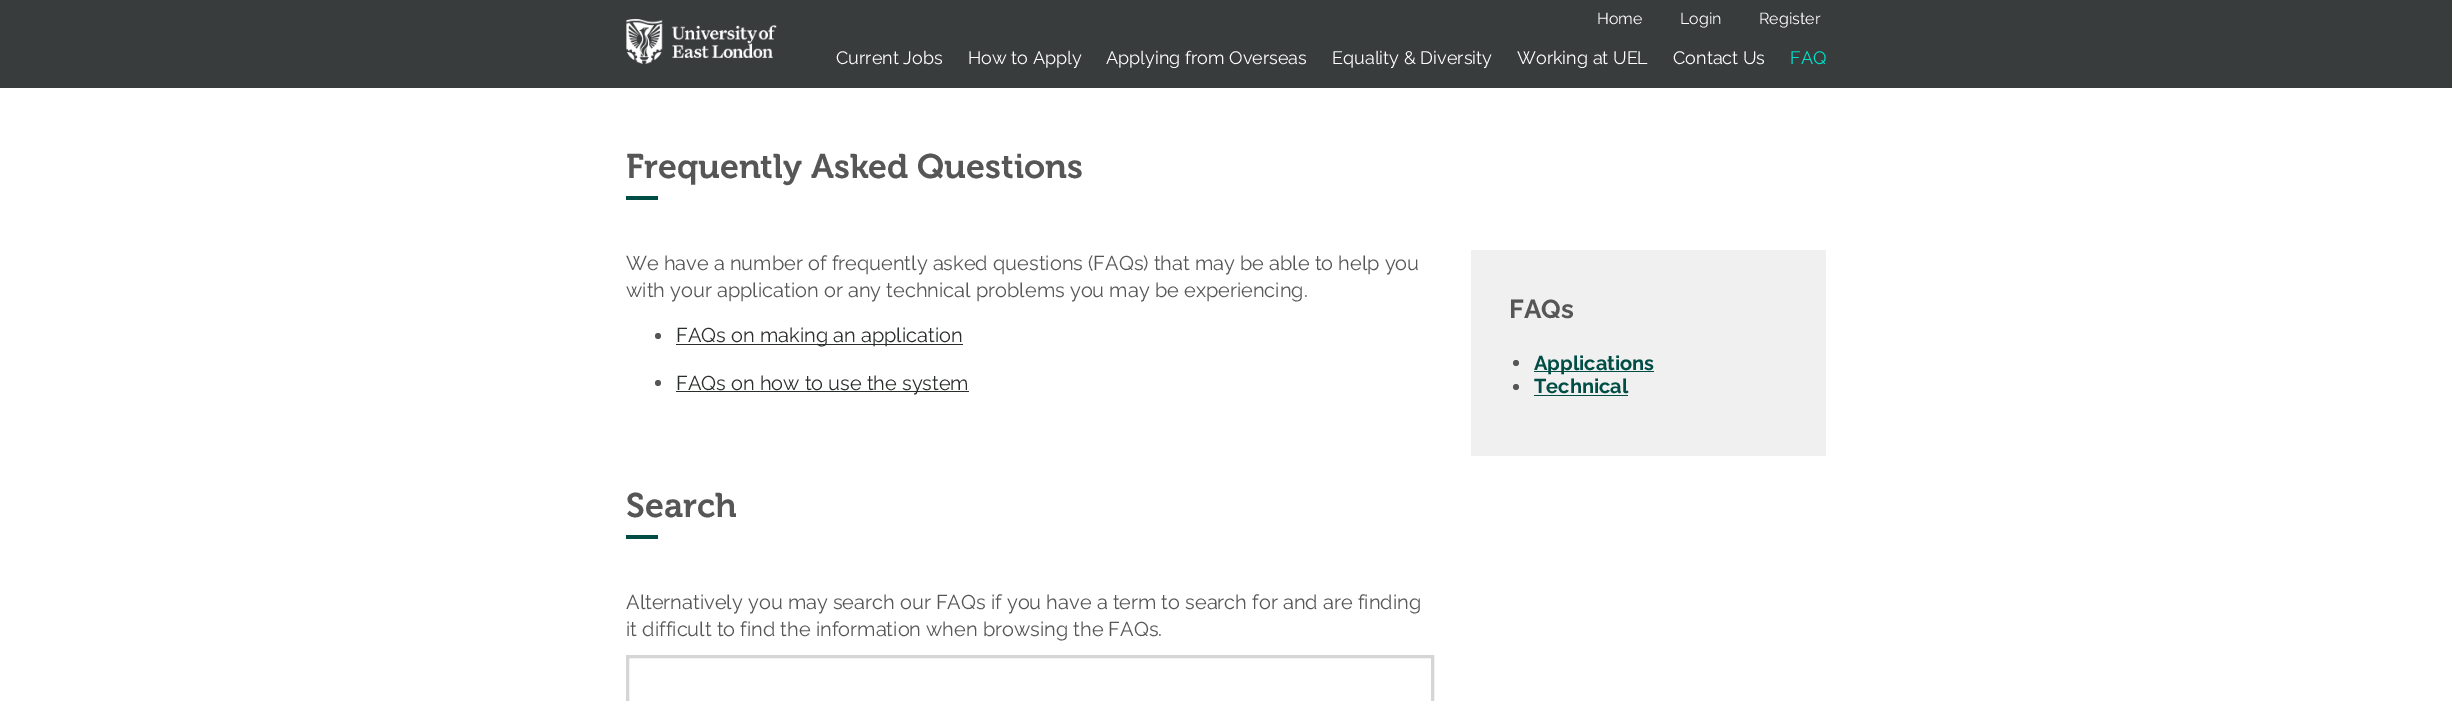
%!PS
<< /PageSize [2452 701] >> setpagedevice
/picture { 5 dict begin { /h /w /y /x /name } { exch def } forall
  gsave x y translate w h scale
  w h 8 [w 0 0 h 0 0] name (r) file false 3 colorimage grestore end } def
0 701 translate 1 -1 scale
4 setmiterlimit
1 setgray
0 0 2452 701 rectfill
0.22 0.235 0.235 setrgbcolor
0 0 2452 88 rectfill
(img1.rgb) 626 19 151 45 picture
/Raleway-Regular [16 0 0 -16 0 0] selectfont
1 setgray
1597 24 moveto (Home) show
1680 24 moveto (Login) show
1759 24 moveto (Register) show
/Raleway-Regular [18 0 0 -18 0 0] selectfont
836 64 moveto (Current Jobs) show
968 64 moveto (How to Apply) show
1106 64 moveto (Applying from Overseas) show
1332 64 moveto (Equality & Diversity) show
1517 64 moveto (Working at UEL) show
1673 64 moveto (Contact Us) show
0 0.882 0.796 setrgbcolor
1790 64 moveto (FAQ) show
/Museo-Bold [34 0 0 -34 0 0] selectfont
0.337 setgray
626 178 moveto (Frequently Asked Questions) show
0 0.302 0.271 setrgbcolor
626 196 32 4 rectfill
/Raleway-Regular [20 0 0 -20 0 0] selectfont
0.337 setgray
626 270 moveto (We have a number of frequently asked questions \(FAQs\) that may be able to help you) show
626 297 moveto (with your application or any technical problems you may be experiencing.) show
newpath 658 336 3 0 360 arc closepath fill
0.165 0.18 0.165 setrgbcolor
676 344 287 1 rectfill
676 342 moveto (FAQs on making an application) show
0.337 setgray
newpath 658 383 3 0 360 arc closepath fill
0.165 0.18 0.165 setrgbcolor
676 391 293 1 rectfill
676 390 moveto (FAQs on how to use the system) show
/Museo-Bold [34 0 0 -34 0 0] selectfont
0.337 setgray
626 517 moveto (Search) show
0 0.302 0.271 setrgbcolor
626 535 32 4 rectfill
/Raleway-Regular [20 0 0 -20 0 0] selectfont
0.337 setgray
626 609 moveto (Alternatively you may search our FAQs if you have a term to search for and are finding) show
626 636 moveto (it difficult to find the information when browsing the FAQs.) show
0.835 setgray
3 setlinewidth
627.5 656.5 805 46 rectstroke
0.941 setgray
1471 250 355 206 rectfill
/Raleway-Bold [26 0 0 -26 0 0] selectfont
0.337 setgray
1509 318 moveto (FAQs) show
newpath 1516 363 3 0 360 arc closepath fill
0 0.302 0.271 setrgbcolor
1534 371 120 1 rectfill
/Raleway-Bold [20 0 0 -20 0 0] selectfont
1534 370 moveto (Applications) show
0.337 setgray
newpath 1516 387 3 0 360 arc closepath fill
0 0.302 0.271 setrgbcolor
1534 393 moveto (Technical) show
1534 395 94 1 rectfill
showpage
